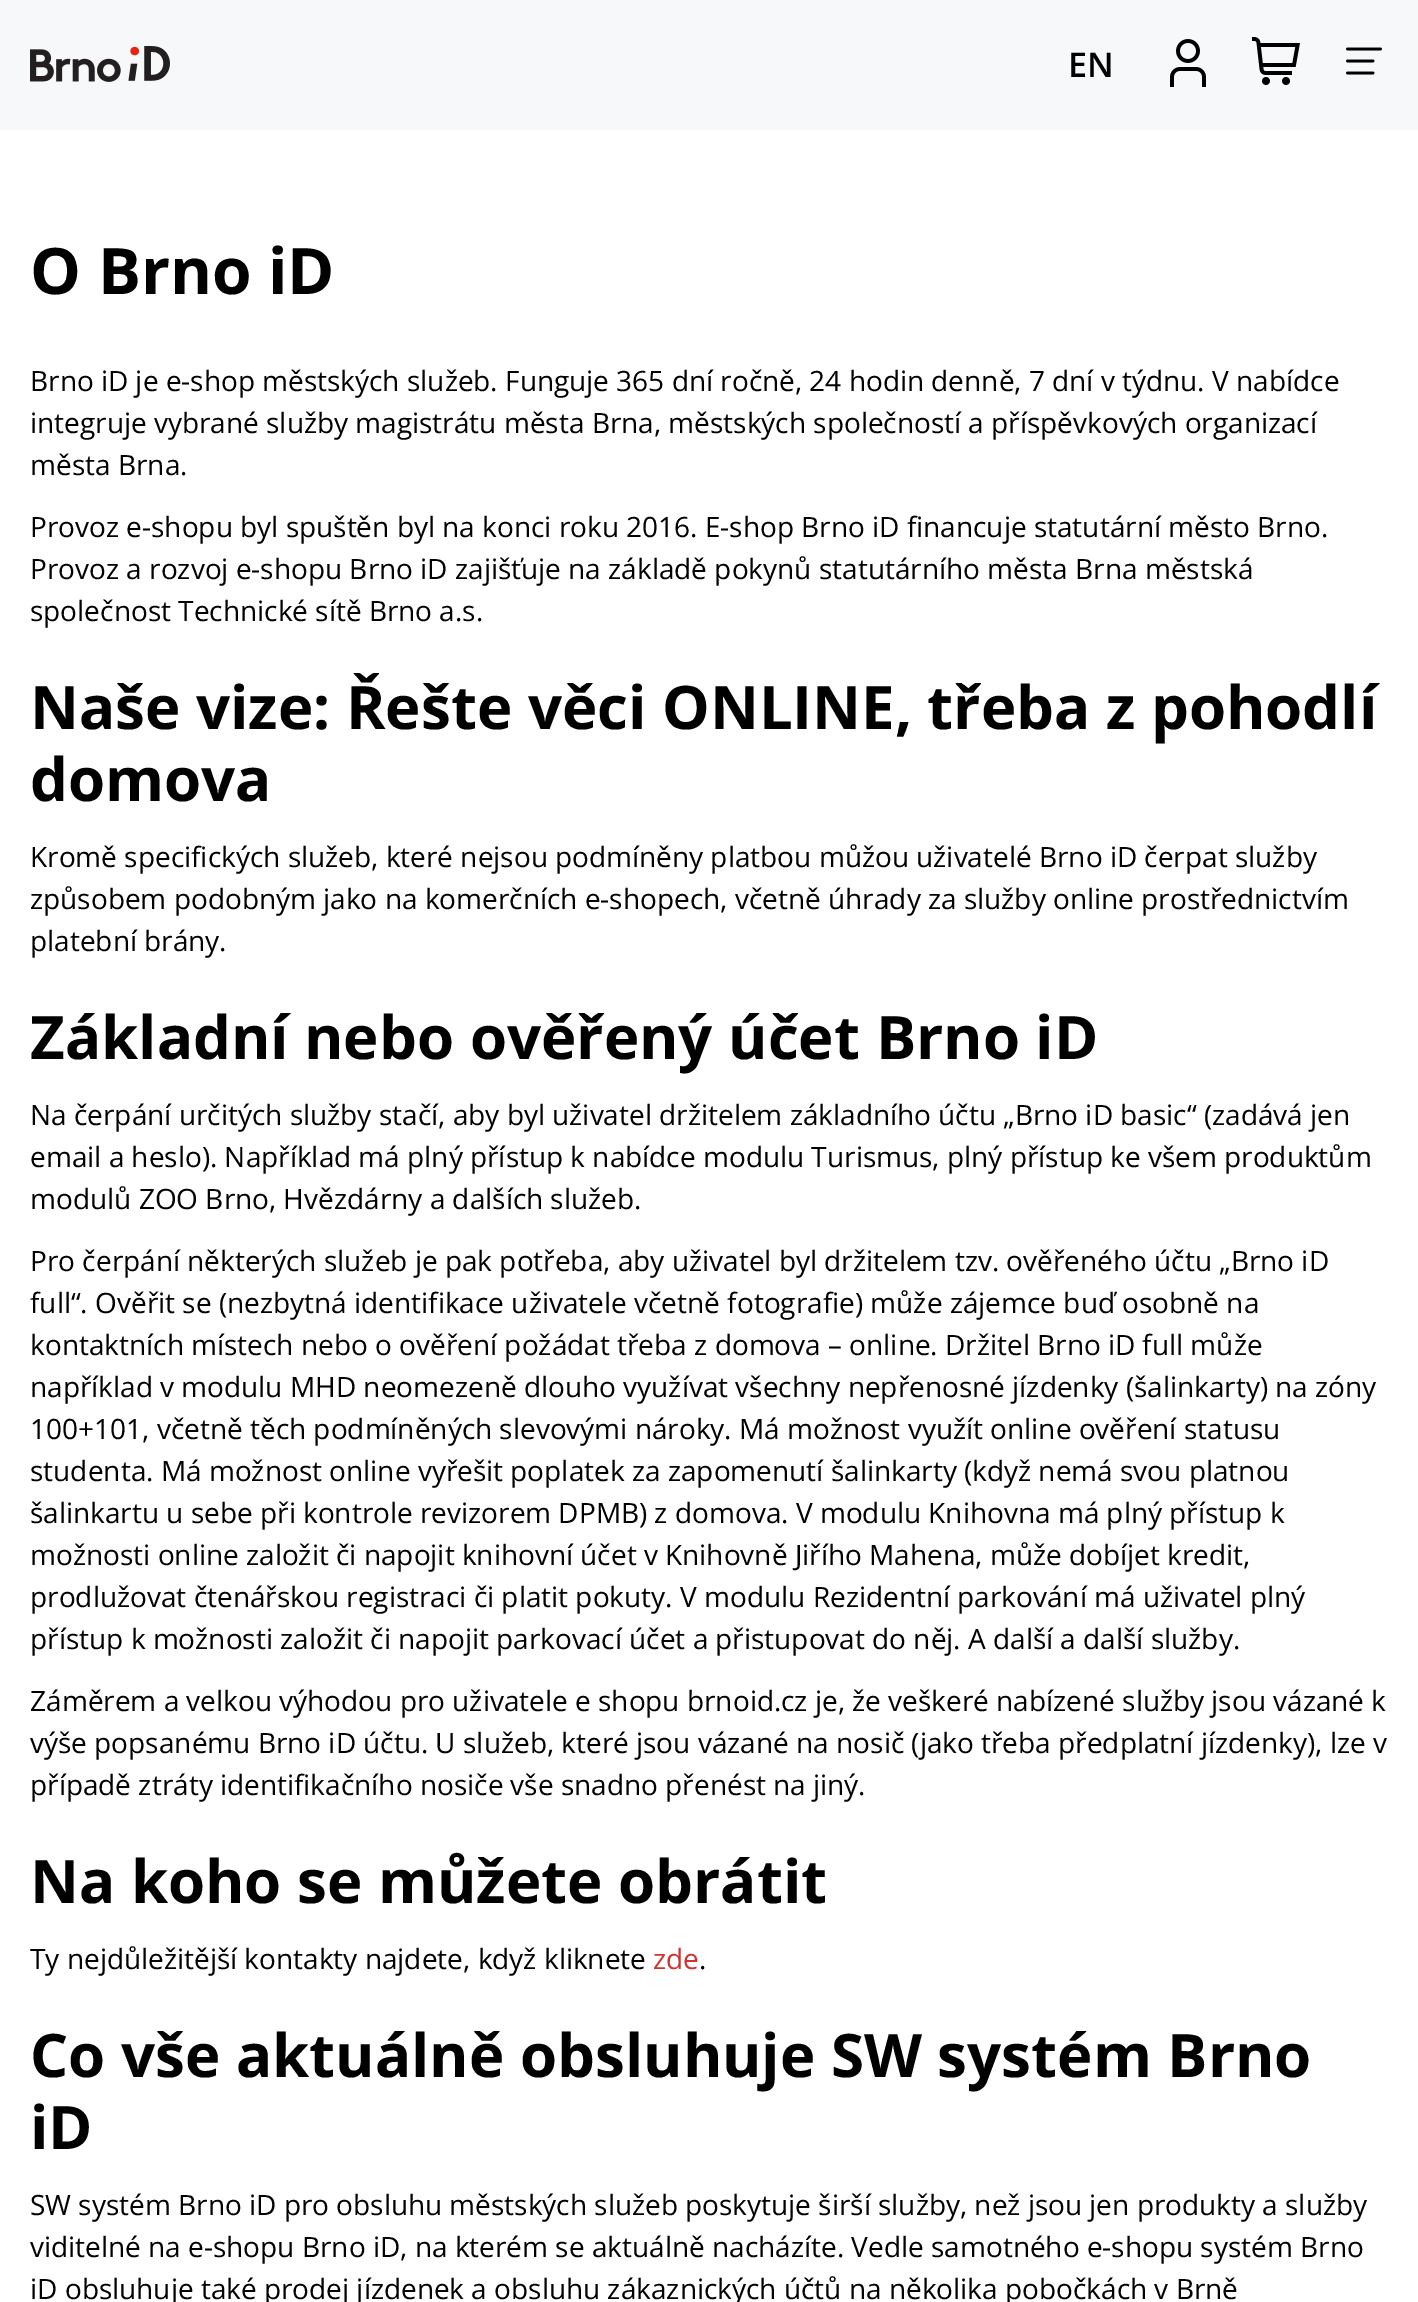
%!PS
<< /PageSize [1418 2302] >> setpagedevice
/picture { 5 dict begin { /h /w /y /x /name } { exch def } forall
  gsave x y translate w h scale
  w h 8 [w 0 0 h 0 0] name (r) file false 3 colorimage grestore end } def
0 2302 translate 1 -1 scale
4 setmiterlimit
1 setgray
0 0 1418 2302 rectfill
0.969 0.973 0.976 setrgbcolor
0 0 1418 130 rectfill
(img1.rgb) 30 46 140 36 picture
/OpenSans-SemiBold [34 0 0 -34 0 0] selectfont
0 setgray
1068 77 moveto (EN) show
(img2.rgb) 1170 39 36 48 picture
(img3.rgb) 1252 37 48 48 picture
(img4.rgb) 1346 47 36 28 picture
/OpenSans-Bold [64 0 0 -64 0 0] selectfont
30 294 moveto (O Brno iD) show
/OpenSans-Regular [28 0 0 -28 0 0] selectfont
30 391 moveto (Brno iD je e-shop městských služeb. Funguje 365 dní ročně, 24 hodin denně, 7 dní v týdnu. V nabídce) show
30 433 moveto (integruje vybrané služby magistrátu města Brna, městských společností a příspěvkových organizací) show
30 475 moveto (města Brna.) show
30 537 moveto (Provoz e-shopu byl spuštěn byl na konci roku 2016. E-shop Brno iD financuje statutární město Brno.) show
30 579 moveto (Provoz a rozvoj e-shopu Brno iD zajišťuje na základě pokynů statutárního města Brna městská) show
30 621 moveto (společnost Technické sítě Brno a.s.) show
/OpenSans-Bold [60 0 0 -60 0 0] selectfont
30 729 moveto (Naše vize: Řešte věci ONLINE, třeba z pohodlí) show
30 801 moveto (domova) show
/OpenSans-Regular [28 0 0 -28 0 0] selectfont
30 867 moveto (Kromě specifických služeb, které nejsou podmíněny platbou můžou uživatelé Brno iD čerpat služby) show
30 909 moveto (způsobem podobným jako na komerčních e-shopech, včetně úhrady za služby online prostřednictvím) show
30 951 moveto (platební brány.) show
/OpenSans-Bold [60 0 0 -60 0 0] selectfont
30 1059 moveto (Základní nebo ověřený účet Brno iD) show
/OpenSans-Regular [28 0 0 -28 0 0] selectfont
30 1125 moveto (Na čerpání určitých služby stačí, aby byl uživatel držitelem základního účtu „Brno iD basic“ \(zadává jen) show
30 1167 moveto (email a heslo\). Například má plný přístup k nabídce modulu Turismus, plný přístup ke všem produktům) show
30 1209 moveto (modulů ZOO Brno, Hvězdárny a dalších služeb.) show
30 1271 moveto (Pro čerpání některých služeb je pak potřeba, aby uživatel byl držitelem tzv. ověřeného účtu „Brno iD) show
30 1313 moveto (full“. Ověřit se \(nezbytná identifikace uživatele včetně fotografie\) může zájemce buď osobně na) show
30 1355 moveto (kontaktních místech nebo o ověření požádat třeba z domova – online. Držitel Brno iD full může) show
30 1397 moveto (například v modulu MHD neomezeně dlouho využívat všechny nepřenosné jízdenky \(šalinkarty\) na zóny) show
30 1439 moveto (100+101, včetně těch podmíněných slevovými nároky. Má možnost využít online ověření statusu) show
30 1481 moveto (studenta. Má možnost online vyřešit poplatek za zapomenutí šalinkarty \(když nemá svou platnou) show
30 1523 moveto (šalinkartu u sebe při kontrole revizorem DPMB\) z domova. V modulu Knihovna má plný přístup k) show
30 1565 moveto (možnosti online založit či napojit knihovní účet v Knihovně Jiřího Mahena, může dobíjet kredit,) show
30 1607 moveto (prodlužovat čtenářskou registraci či platit pokuty. V modulu Rezidentní parkování má uživatel plný) show
30 1649 moveto (přístup k možnosti založit či napojit parkovací účet a přistupovat do něj. A další a další služby.) show
30 1711 moveto (Záměrem a velkou výhodou pro uživatele e shopu brnoid.cz je, že veškeré nabízené služby jsou vázané k) show
30 1753 moveto (výše popsanému Brno iD účtu. U služeb, které jsou vázané na nosič \(jako třeba předplatní jízdenky\), lze v) show
30 1795 moveto (případě ztráty identifikačního nosiče vše snadno přenést na jiný.) show
/OpenSans-Bold [60 0 0 -60 0 0] selectfont
30 1903 moveto (Na koho se můžete obrátit) show
/OpenSans-Regular [28 0 0 -28 0 0] selectfont
30 1969 moveto (Ty nejdůležitější kontakty najdete, když kliknete) show
0.812 0.196 0.192 setrgbcolor
653 1969 moveto (zde) show
0 setgray
699 1969 moveto (.) show
/OpenSans-Bold [60 0 0 -60 0 0] selectfont
30 2077 moveto (Co vše aktuálně obsluhuje SW systém Brno) show
30 2149 moveto (iD) show
/OpenSans-Regular [28 0 0 -28 0 0] selectfont
30 2215 moveto (SW systém Brno iD pro obsluhu městských služeb poskytuje širší služby, než jsou jen produkty a služby) show
30 2257 moveto (viditelné na e-shopu Brno iD, na kterém se aktuálně nacházíte. Vedle samotného e-shopu systém Brno) show
30 2299 moveto (iD obsluhuje také prodej jízdenek a obsluhu zákaznických účtů na několika pobočkách v Brně) show
showpage
